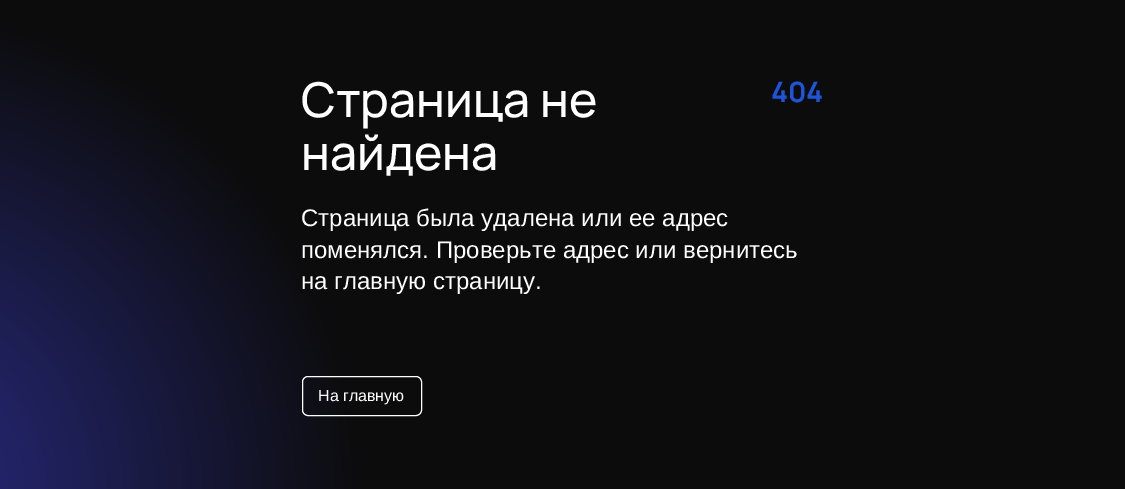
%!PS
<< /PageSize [1125 489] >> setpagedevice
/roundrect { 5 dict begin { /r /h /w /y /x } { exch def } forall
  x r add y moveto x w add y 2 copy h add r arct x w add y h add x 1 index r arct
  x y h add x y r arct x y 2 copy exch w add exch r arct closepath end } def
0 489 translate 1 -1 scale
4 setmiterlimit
0.047 setgray
0 0 1125 489 rectfill
gsave newpath 0 0 moveto -122 0 lineto 148 0 367 219 367 489 curveto 0 489 lineto closepath clip newpath -122 489 translate 489 489 scale
<< /ShadingType 3 /ColorSpace /DeviceRGB /Coords [0 0 0 0 0 1] /Extend [true true] /Function << /FunctionType 2 /Domain [0 1] /C0 [0.165 0.169 0.525] /C1 [0.047 0.047 0.047] /N 1 >> >> shfill grestore
/Manrope-Medium [48 0 0 -48 0 0] selectfont
1 setgray
301 117 moveto (Страница не) show
/Manrope-Bold [28 0 0 -28 0 0] selectfont
0.125 0.329 0.847 setrgbcolor
771 102 moveto (404) show
/Manrope-Medium [48 0 0 -48 0 0] selectfont
1 setgray
301 170 moveto (найдена) show
/LiberationSans-Regular [24 0 0 -24 0 0] selectfont
301 226 moveto (Страница была удалена или ее адрес) show
301 258 moveto (поменялся. Проверьте адрес или вернитесь) show
301 289 moveto (на главную страницу.) show
302.5 376.5 119 39 5.5 roundrect stroke
/LiberationSans-Regular [16 0 0 -16 0 0] selectfont
318 401 moveto (На главную) show
showpage
